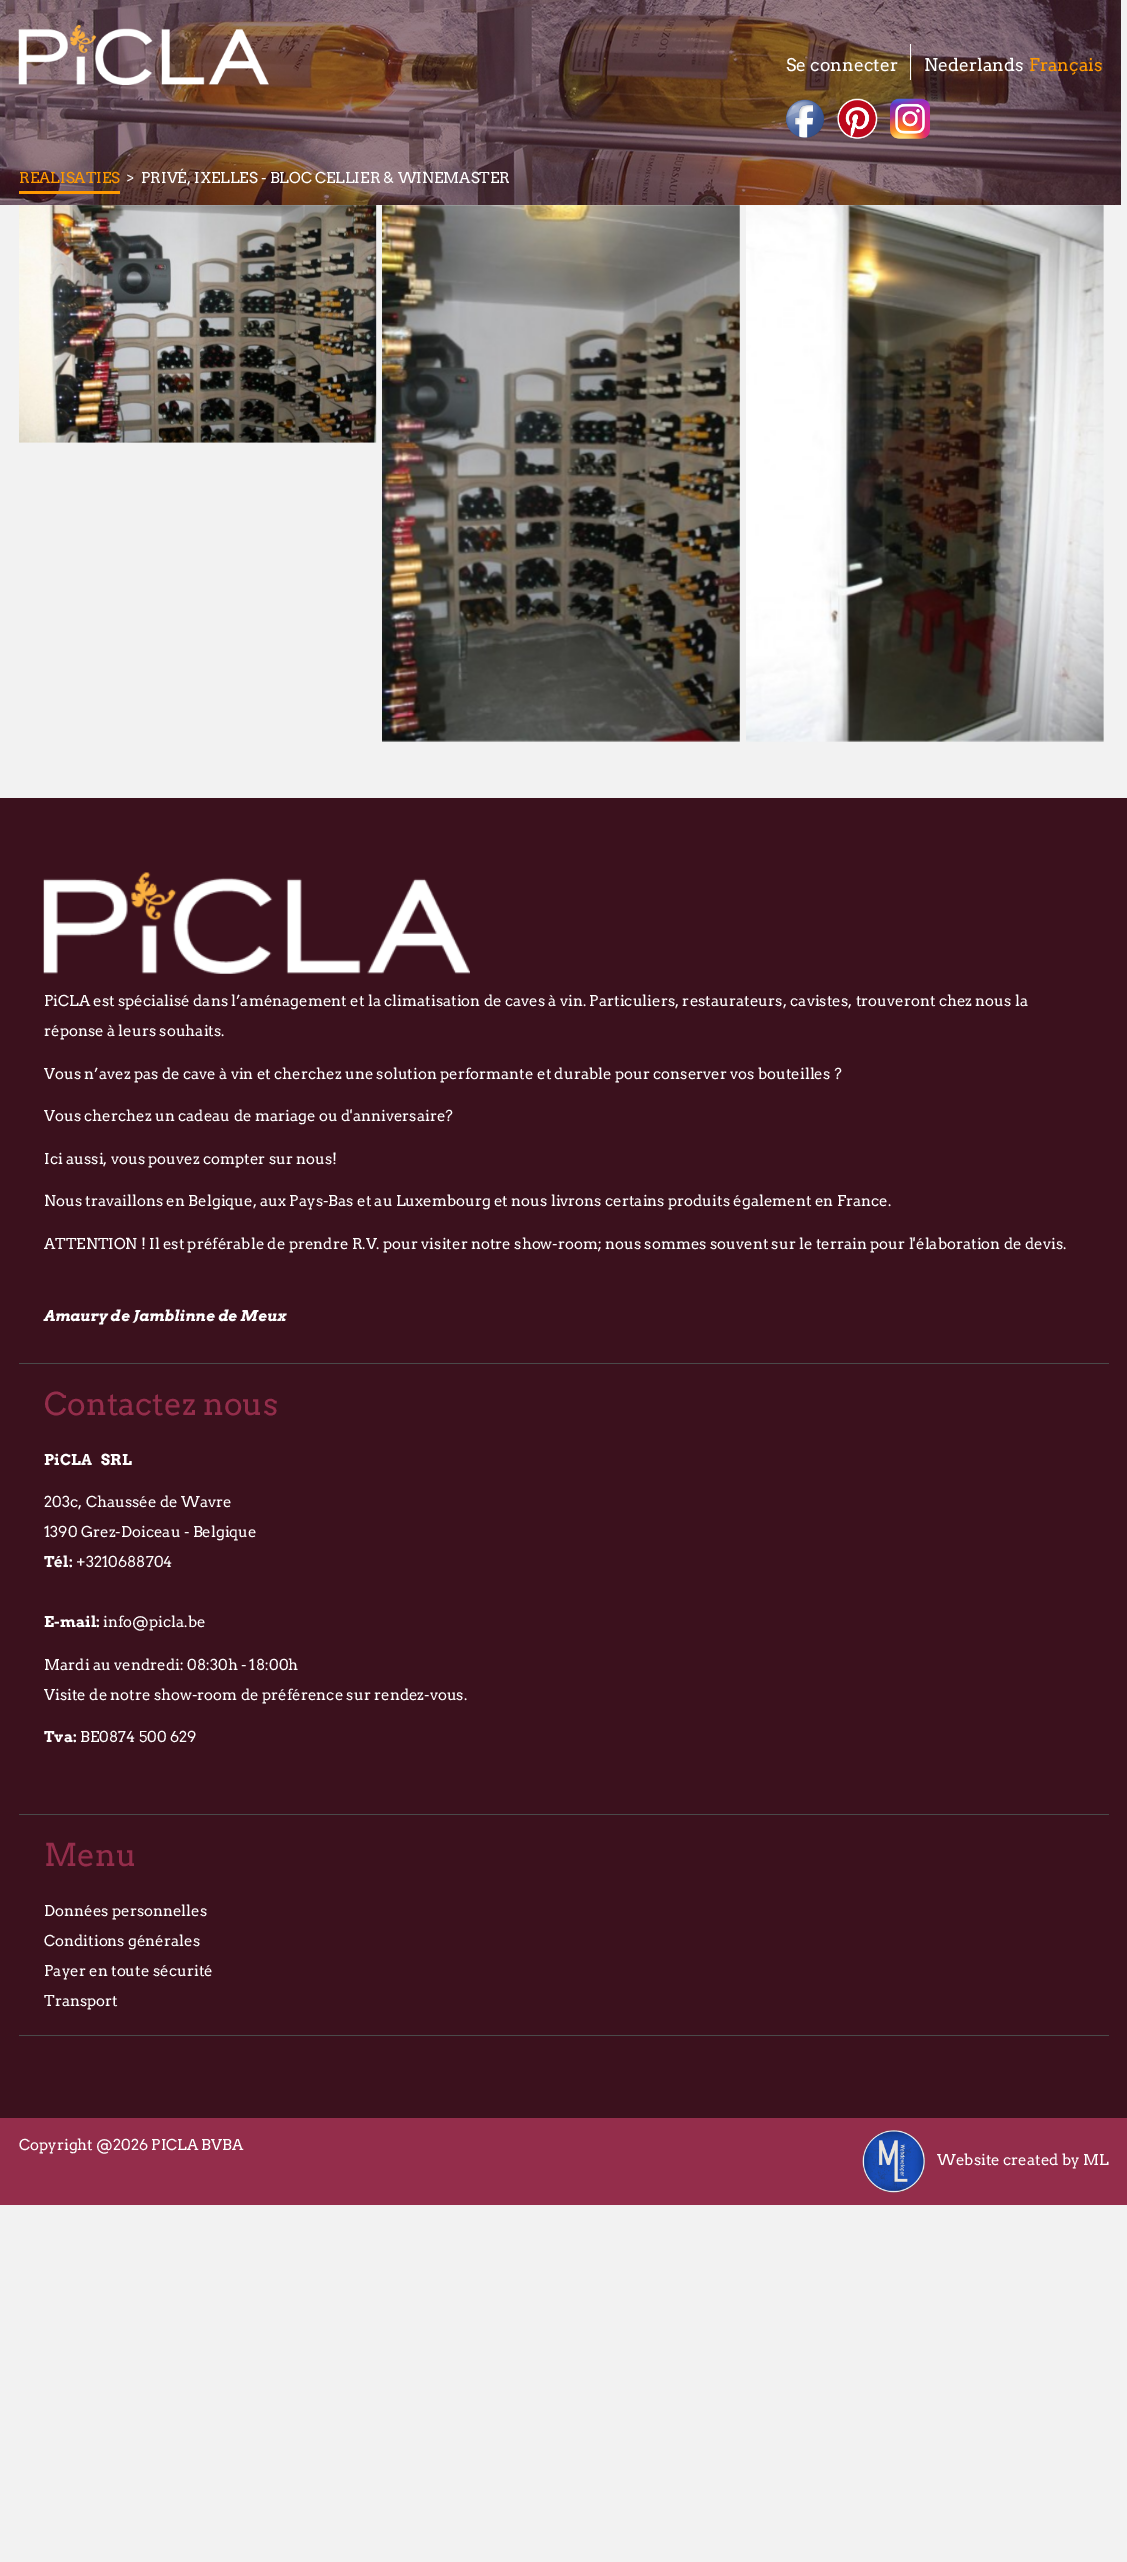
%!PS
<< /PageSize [1127 2562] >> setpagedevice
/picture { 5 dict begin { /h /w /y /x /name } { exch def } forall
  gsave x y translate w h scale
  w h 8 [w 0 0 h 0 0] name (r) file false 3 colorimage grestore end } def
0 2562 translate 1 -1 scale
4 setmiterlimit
0.949 setgray
0 0 1127 2562 rectfill
(img5.rgb) 0 0 1121 205 picture
(img1.rgb) 18 25 251 60 picture
/Arvo-Regular [17.5 0 0 -17.5 0 0] selectfont
1 setgray
786 71 moveto (Se connecter) show
910 44 1 36 rectfill
924 71 moveto (Nederlands) show
1 0.6 0 setrgbcolor
1029 71 moveto (Français) show
(img2.rgb) 785 99 40 39 picture
(img3.rgb) 837 98 41 41 picture
(img4.rgb) 890 98 40 41 picture
/Arvo-Regular [15 0 0 -15 0 0] selectfont
19 183 moveto (REALISATIES) show
19 191 101 3 rectfill
1 setgray
126 183 moveto (>  PRIVÉ, IXELLES - BLOC CELLIER & WINEMASTER) show
(img6.rgb) 19 205 358 238 picture
(img7.rgb) 382 205 358 537 picture
(img8.rgb) 746 205 358 537 picture
0.231 0.067 0.114 setrgbcolor
0 798 1127 1320 rectfill
0.29 setgray
19 1363 1090 1 rectfill
(img9.rgb) 43 872 427 102 picture
1 setgray
44 1006 moveto (PiCLA est spécialisé dans l’aménagement et la climatisation de caves à vin. Particuliers, restaurateurs, cavistes, trouveront chez nous la) show
44 1036 moveto (réponse à leurs souhaits.) show
44 1079 moveto (Vous n’avez pas de cave à vin et cherchez une solution performante et durable pour conserver vos bouteilles ?) show
44 1121 moveto (Vous cherchez un cadeau de mariage ou d'anniversaire?) show
44 1164 moveto (Ici aussi, vous pouvez compter sur nous!) show
44 1206 moveto (Nous travaillons en Belgique, aux Pays-Bas et au Luxembourg et nous livrons certains produits également en France.) show
44 1249 moveto (ATTENTION ! Il est préférable de prendre R.V. pour visiter notre show-room; nous sommes souvent sur le terrain pour l'élaboration de devis.) show
/Arvo-BoldItalic [15 0 0 -15 0 0] selectfont
44 1321 moveto (Amaury de Jamblinne de Meux) show
0.29 setgray
19 1814 1090 1 rectfill
/Arvo-Regular [31.25 0 0 -31.25 0 0] selectfont
0.58 0.176 0.294 setrgbcolor
44 1415 moveto (Contactez nous) show
/Arvo-Bold [15 0 0 -15 0 0] selectfont
1 setgray
44 1465 moveto (PiCLA   SRL) show
/Arvo-Regular [15 0 0 -15 0 0] selectfont
44 1507 moveto (203c, Chaussée de Wavre) show
44 1537 moveto (1390 Grez-Doiceau - Belgique) show
/Arvo-Bold [15 0 0 -15 0 0] selectfont
44 1567 moveto (Tél:) show
/Arvo-Regular [15 0 0 -15 0 0] selectfont
76 1567 moveto (+3210688704) show
/Arvo-Bold [15 0 0 -15 0 0] selectfont
44 1627 moveto (E-mail:) show
/Arvo-Regular [15 0 0 -15 0 0] selectfont
103 1627 moveto (info@picla.be) show
44 1670 moveto (Mardi au vendredi: 08:30h - 18:00h) show
44 1700 moveto (Visite de notre show-room de préférence sur rendez-vous.) show
/Arvo-Bold [15 0 0 -15 0 0] selectfont
44 1742 moveto (Tva:) show
/Arvo-Regular [15 0 0 -15 0 0] selectfont
80 1742 moveto (BE0874 500 629) show
0.29 setgray
19 2035 1090 1 rectfill
/Arvo-Regular [31.25 0 0 -31.25 0 0] selectfont
0.58 0.176 0.294 setrgbcolor
44 1866 moveto (Menu) show
/Arvo-Regular [15 0 0 -15 0 0] selectfont
1 setgray
44 1916 moveto (Données personnelles) show
44 1946 moveto (Conditions générales) show
44 1976 moveto (Payer en toute sécurité) show
44 2006 moveto (Transport) show
0.58 0.176 0.294 setrgbcolor
0 2118 1127 87 rectfill
1 setgray
19 2150 moveto (Copyright @2026 PICLA BVBA) show
(img10.rgb) 862 2130 63 63 picture
937 2165 moveto (Website created by ML) show
showpage
